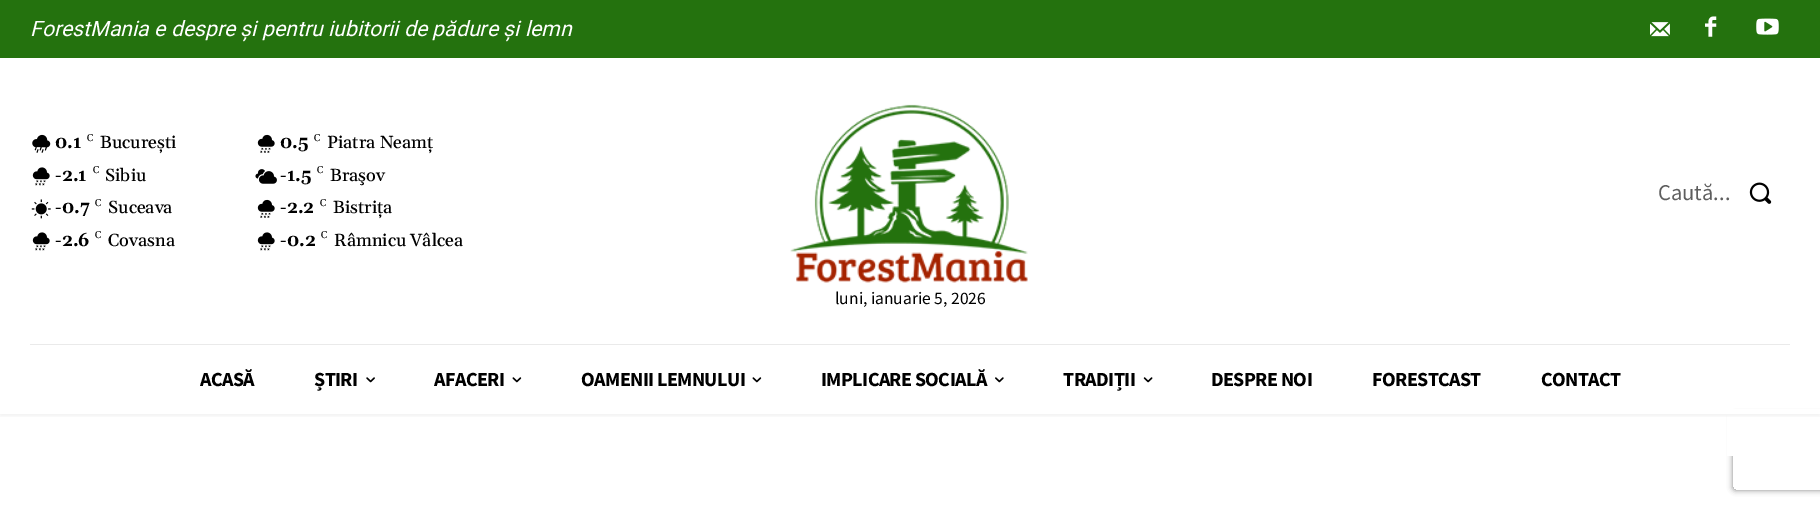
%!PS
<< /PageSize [1820 507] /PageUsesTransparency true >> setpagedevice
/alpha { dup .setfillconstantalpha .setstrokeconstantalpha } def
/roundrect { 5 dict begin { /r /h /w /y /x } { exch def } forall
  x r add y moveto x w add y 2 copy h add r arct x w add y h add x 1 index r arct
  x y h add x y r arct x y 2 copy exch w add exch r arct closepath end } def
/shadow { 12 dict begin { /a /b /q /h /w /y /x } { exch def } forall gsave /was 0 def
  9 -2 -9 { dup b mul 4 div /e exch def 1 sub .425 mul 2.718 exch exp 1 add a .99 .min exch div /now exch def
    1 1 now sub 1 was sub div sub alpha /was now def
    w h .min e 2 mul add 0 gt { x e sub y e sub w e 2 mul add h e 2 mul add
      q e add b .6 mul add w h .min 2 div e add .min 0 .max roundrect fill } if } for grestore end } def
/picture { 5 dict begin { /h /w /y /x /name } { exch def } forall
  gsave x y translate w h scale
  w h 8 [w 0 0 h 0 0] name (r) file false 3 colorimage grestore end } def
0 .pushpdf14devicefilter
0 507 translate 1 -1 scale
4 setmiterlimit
1 setgray
0 0 1820 507 rectfill
0.141 0.447 0.055 setrgbcolor
0 0 1820 58 rectfill
/Roboto-Italic [21.25 0 0 -21.25 0 0] selectfont
1 setgray
30 36 moveto (ForestMania e despre și pentru iubitorii de pădure și lemn) show
(img1.rgb) 1650 22 20 15 picture
(img2.rgb) 1705 16 12 21 picture
(img3.rgb) 1756 18 23 17 picture
(img4.rgb) 32 134 19 19 picture
/Gelasio-Bold [17.5 0 0 -17.5 0 0] selectfont
0 setgray
55 148 moveto (0.1) show
/Gelasio-Regular [10 0 0 -10 0 0] selectfont
87 141 moveto (C) show
/Gelasio-Medium [17.5 0 0 -17.5 0 0] selectfont
100 148 moveto (București) show
(img5.rgb) 32 167 18 19 picture
/Gelasio-Bold [17.5 0 0 -17.5 0 0] selectfont
55 181 moveto (-2.1) show
/Gelasio-Regular [10 0 0 -10 0 0] selectfont
93 173 moveto (C) show
/Gelasio-Medium [17.5 0 0 -17.5 0 0] selectfont
105 181 moveto (Sibiu) show
(img6.rgb) 31 199 20 20 picture
/Gelasio-Bold [17.5 0 0 -17.5 0 0] selectfont
55 213 moveto (-0.7) show
/Gelasio-Regular [10 0 0 -10 0 0] selectfont
95 206 moveto (C) show
/Gelasio-Medium [17.5 0 0 -17.5 0 0] selectfont
108 213 moveto (Suceava) show
(img5.rgb) 32 232 18 19 picture
/Gelasio-Bold [17.5 0 0 -17.5 0 0] selectfont
55 246 moveto (-2.6) show
/Gelasio-Regular [10 0 0 -10 0 0] selectfont
95 238 moveto (C) show
/Gelasio-Medium [17.5 0 0 -17.5 0 0] selectfont
108 246 moveto (Covasna) show
(img7.rgb) 257 134 18 19 picture
/Gelasio-Bold [17.5 0 0 -17.5 0 0] selectfont
280 148 moveto (0.5) show
/Gelasio-Regular [10 0 0 -10 0 0] selectfont
314 141 moveto (C) show
/Gelasio-Medium [17.5 0 0 -17.5 0 0] selectfont
327 148 moveto (Piatra Neamț) show
(img8.rgb) 255 169 22 15 picture
/Gelasio-Bold [17.5 0 0 -17.5 0 0] selectfont
280 181 moveto (-1.5) show
/Gelasio-Regular [10 0 0 -10 0 0] selectfont
317 173 moveto (C) show
/Gelasio-Medium [17.5 0 0 -17.5 0 0] selectfont
330 181 moveto (Braşov) show
(img7.rgb) 257 199 18 19 picture
/Gelasio-Bold [17.5 0 0 -17.5 0 0] selectfont
280 213 moveto (-2.2) show
/Gelasio-Regular [10 0 0 -10 0 0] selectfont
320 206 moveto (C) show
/Gelasio-Medium [17.5 0 0 -17.5 0 0] selectfont
333 213 moveto (Bistrița) show
(img5.rgb) 257 232 18 19 picture
/Gelasio-Bold [17.5 0 0 -17.5 0 0] selectfont
280 246 moveto (-0.2) show
/Gelasio-Regular [10 0 0 -10 0 0] selectfont
321 238 moveto (C) show
/Gelasio-Medium [17.5 0 0 -17.5 0 0] selectfont
334 246 moveto (Râmnicu Vâlcea) show
(img9.rgb) 790 104 238 179 picture
/SourceSansPro-Regular [22.5 0 0 -22.5 0 0] selectfont
0.369 setgray
1658 200 moveto (Caută...) show
(img10.rgb) 1749 182 23 22 picture
0.918 setgray
30 344 1760 1 rectfill
gsave
newpath 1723 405 moveto 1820 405 lineto 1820 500 lineto 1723 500 lineto closepath 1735.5 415 moveto 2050.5 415 lineto 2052 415 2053 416 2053 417.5 curveto 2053 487.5 lineto 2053 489 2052 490 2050.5 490 curveto 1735.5 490 lineto 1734 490 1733 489 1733 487.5 curveto 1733 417.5 lineto 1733 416 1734 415 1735.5 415 curveto closepath eoclip newpath
0.502 setgray
1733 415 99 75 2.5 3 1 shadow
grestore
1 setgray
1727 409 93 47 rectfill
gsave
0 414 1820 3 rectclip
0 setgray
0 291 1820 125 0 2.5 0.06 shadow
grestore
/SourceSansPro-Regular [17.5 0 0 -17.5 0 0] selectfont
0 setgray
835 304 moveto (luni, ianuarie 5, 2026) show
/SourceSansPro-Bold [20 0 0 -20 0 0] selectfont
200 386 moveto -0.6 0 (ACASĂ) ashow
314 386 moveto -0.6 0 (ȘTIRI) ashow
(img11.rgb) 366 377 9 6 picture
434 386 moveto -0.6 0 (AFACERI) ashow
(img12.rgb) 512 377 10 6 picture
581 386 moveto -0.6 0 (OAMENII LEMNULUI) ashow
(img12.rgb) 752 377 10 6 picture
821 386 moveto -0.6 0 (IMPLICARE SOCIALĂ) ashow
(img13.rgb) 995 377 9 6 picture
1063 386 moveto -0.6 0 (TRADIȚII) ashow
(img14.rgb) 1143 377 10 6 picture
1211 386 moveto -0.6 0 (DESPRE NOI) ashow
1372 386 moveto -0.6 0 (FORESTCAST) ashow
1541 386 moveto -0.6 0 (CONTACT) ashow
.poppdf14devicefilter showpage
